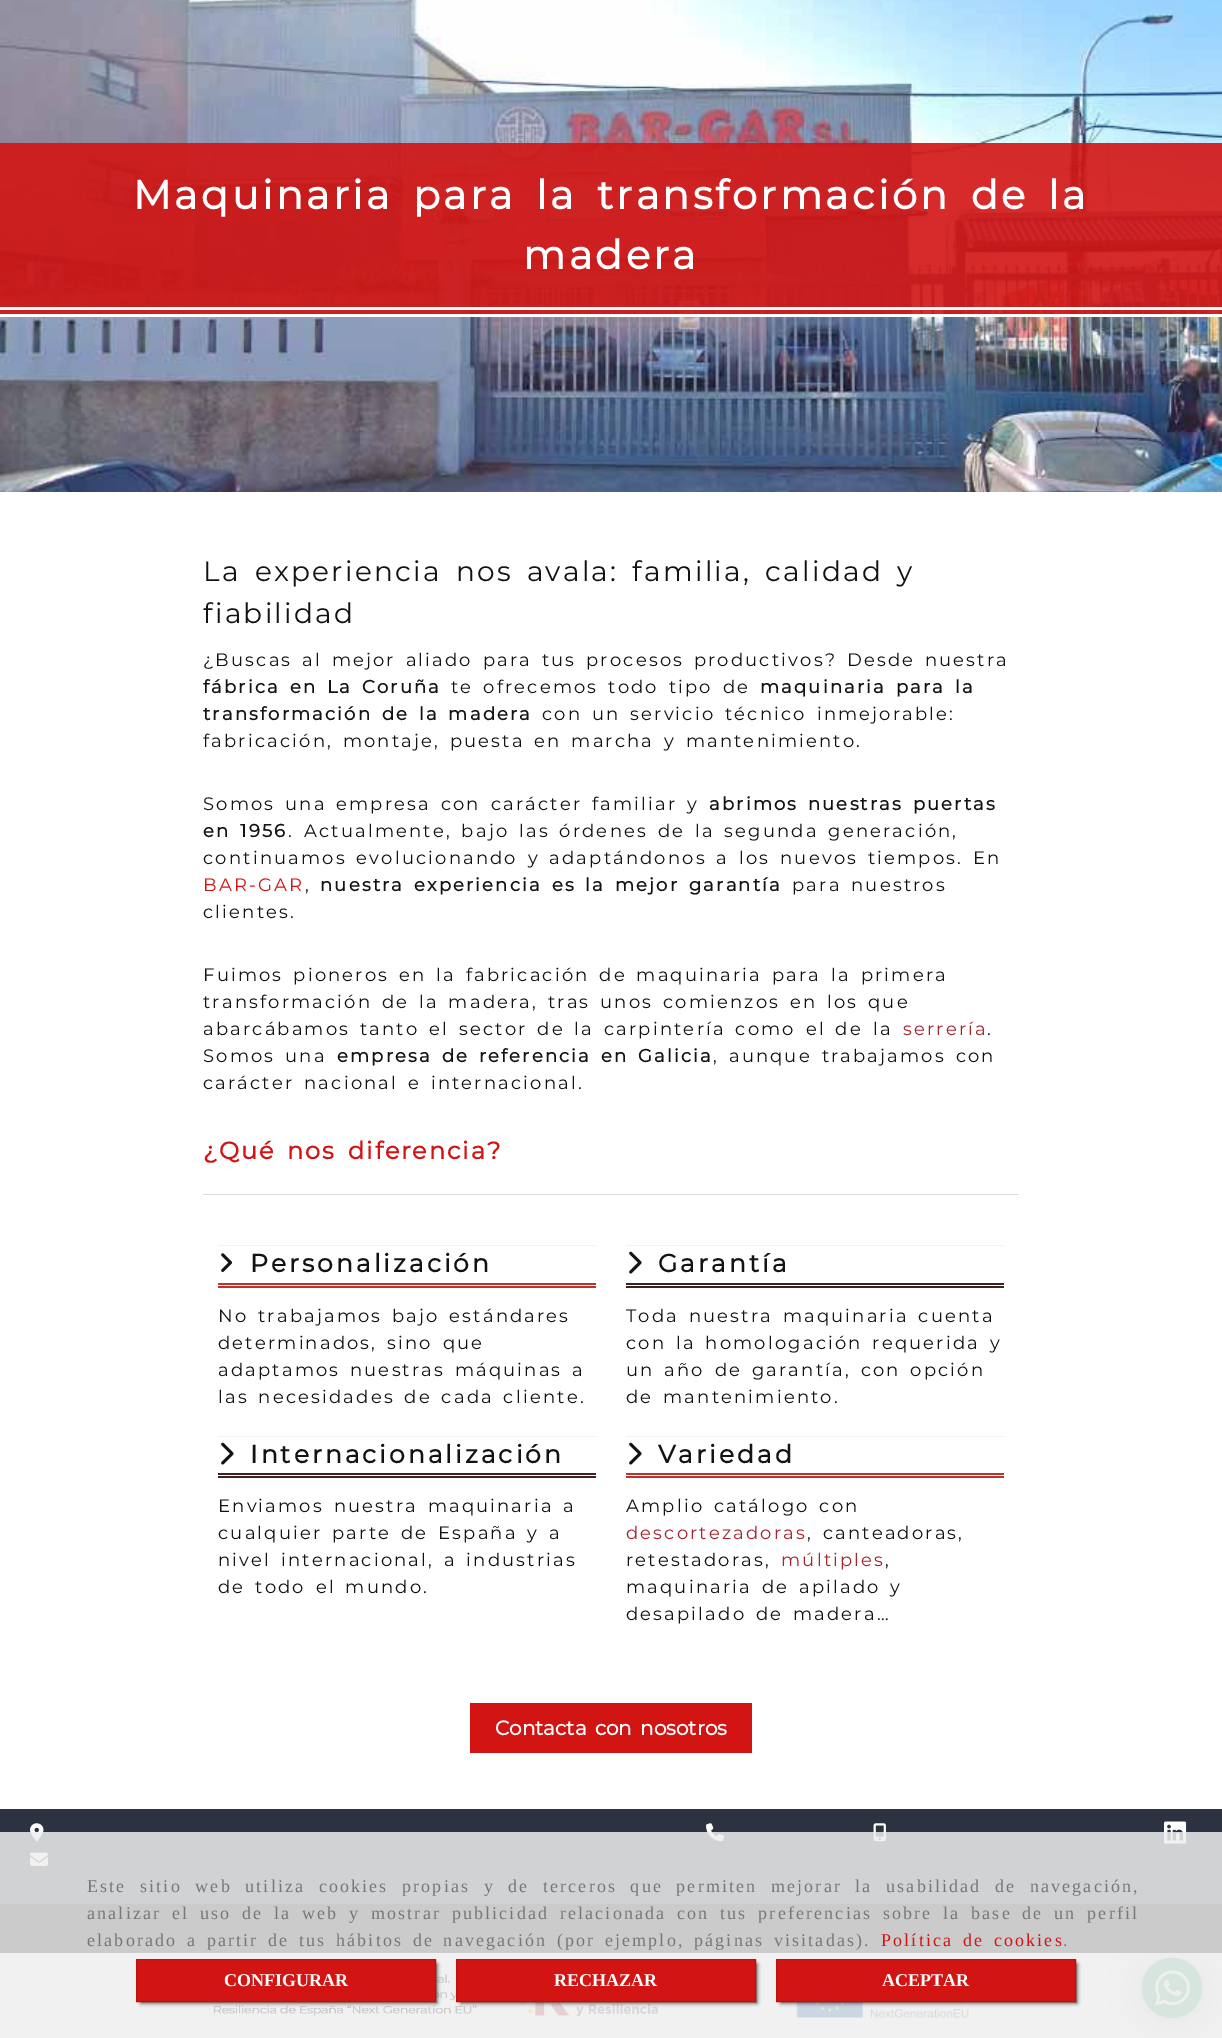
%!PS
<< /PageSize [1222 2038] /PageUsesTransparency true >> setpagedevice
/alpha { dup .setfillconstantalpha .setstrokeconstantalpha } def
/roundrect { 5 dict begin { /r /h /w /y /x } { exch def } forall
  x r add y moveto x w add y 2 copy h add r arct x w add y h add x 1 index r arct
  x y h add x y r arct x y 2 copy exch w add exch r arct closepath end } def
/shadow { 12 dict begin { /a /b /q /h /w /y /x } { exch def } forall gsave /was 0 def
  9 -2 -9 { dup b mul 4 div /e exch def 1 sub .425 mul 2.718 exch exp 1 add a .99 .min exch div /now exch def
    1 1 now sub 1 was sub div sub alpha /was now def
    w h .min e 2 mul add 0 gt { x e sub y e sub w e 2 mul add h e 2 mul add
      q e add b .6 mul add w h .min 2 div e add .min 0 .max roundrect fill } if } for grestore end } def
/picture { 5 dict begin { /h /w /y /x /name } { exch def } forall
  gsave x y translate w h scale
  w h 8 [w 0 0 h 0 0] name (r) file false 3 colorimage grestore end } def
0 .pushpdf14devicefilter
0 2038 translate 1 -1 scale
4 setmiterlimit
1 setgray
0 0 1222 2038 rectfill
(img1.rgb) 0 0 1222 492 picture
0.9 alpha
0.824 0.078 0.075 setrgbcolor
0 143 1222 171 rectfill
1 alpha
1 setgray
0 307 1222 3 rectfill
0 314 1222 3 rectfill
/Montserrat-Bold [40 0 0 -40 0 0] selectfont
133 209 moveto 6.5 0 32 3.2 0 (Maquinaria para la transformación de la) awidthshow
523 269 moveto 3.2 0 (madera) ashow
/Montserrat-Thin [28 0 0 -28 0 0] selectfont
0.075 setgray
203 581 moveto 4.5 0 32 2.25 0 (La experiencia nos avala: familia, calidad y) awidthshow
203 623 moveto 2.25 0 (fiabilidad) ashow
/Montserrat-Thin [18 0 0 -18 0 0] selectfont
203 666 moveto 2.9 0 32 2.16 0 (¿Buscas al mejor aliado para tus procesos productivos? Desde nuestra) awidthshow
/Montserrat-Bold [18 0 0 -18 0 0] selectfont
203 693 moveto 2.9 0 32 2.16 0 (fábrica en La Coruña) awidthshow
/Montserrat-Thin [18 0 0 -18 0 0] selectfont
451 693 moveto 2.9 0 32 2.16 0 (te ofrecemos todo tipo de) awidthshow
/Montserrat-Bold [18 0 0 -18 0 0] selectfont
760 693 moveto 2.9 0 32 2.16 0 (maquinaria para la) awidthshow
203 720 moveto 2.9 0 32 2.16 0 (transformación de la madera) awidthshow
/Montserrat-Thin [18 0 0 -18 0 0] selectfont
542 720 moveto 2.9 0 32 2.16 0 (con un servicio técnico inmejorable:) awidthshow
203 747 moveto 2.9 0 32 2.16 0 (fabricación, montaje, puesta en marcha y mantenimiento.) awidthshow
203 810 moveto 2.9 0 32 2.16 0 (Somos una empresa con carácter familiar y) awidthshow
/Montserrat-Bold [18 0 0 -18 0 0] selectfont
709 810 moveto 2.9 0 32 2.16 0 (abrimos nuestras puertas) awidthshow
203 837 moveto 2.9 0 32 2.16 0 (en 1956) awidthshow
/Montserrat-Thin [18 0 0 -18 0 0] selectfont
288 837 moveto 2.9 0 32 2.16 0 (. Actualmente, bajo las órdenes de la segunda generación,) awidthshow
203 864 moveto 2.9 0 32 2.16 0 (continuamos evolucionando y adaptándonos a los nuevos tiempos. En) awidthshow
0.824 0.078 0.075 setrgbcolor
203 891 moveto 2.16 0 (BAR-GAR) ashow
0.075 setgray
305 891 moveto 2.16 0 (,) ashow
/Montserrat-Bold [18 0 0 -18 0 0] selectfont
320 891 moveto 2.9 0 32 2.16 0 (nuestra experiencia es la mejor garantía) awidthshow
/Montserrat-Thin [18 0 0 -18 0 0] selectfont
792 891 moveto 2.9 0 32 2.16 0 (para nuestros) awidthshow
203 918 moveto 2.16 0 (clientes.) ashow
203 981 moveto 2.9 0 32 2.16 0 (Fuimos pioneros en la fabricación de maquinaria para la primera) awidthshow
203 1008 moveto 2.9 0 32 2.16 0 (transformación de la madera, tras unos comienzos en los que) awidthshow
203 1035 moveto 2.9 0 32 2.16 0 (abarcábamos tanto el sector de la carpintería como el de la) awidthshow
0.651 0.141 0.184 setrgbcolor
903 1035 moveto 2.16 0 (serrería) ashow
0.075 setgray
987 1035 moveto 2.16 0 (.) ashow
203 1062 moveto 2.9 0 32 2.16 0 (Somos una) awidthshow
/Montserrat-Bold [18 0 0 -18 0 0] selectfont
337 1062 moveto 2.9 0 32 2.16 0 (empresa de referencia en Galicia) awidthshow
/Montserrat-Thin [18 0 0 -18 0 0] selectfont
713 1062 moveto 2.9 0 32 2.16 0 (, aunque trabajamos con) awidthshow
203 1089 moveto 2.9 0 32 2.16 0 (carácter nacional e internacional.) awidthshow
/Montserrat-Bold [24 0 0 -24 0 0] selectfont
0.824 0.078 0.075 setrgbcolor
203 1159 moveto 4 0 32 1.9 0 (¿Qué nos diferencia?) awidthshow
0.867 setgray
203 1194 816 1 rectfill
0.949 setgray
218 1245 378 1 rectfill
0.741 0.2 0.176 setrgbcolor
218 1283 378 2 rectfill
218 1286 378 2 rectfill
(img2.rgb) 221 1253 11 19 picture
/Montserrat-Bold [25 0 0 -25 0 0] selectfont
0.075 setgray
250 1272 moveto 3 0 (Personalización) ashow
/Montserrat-Thin [18 0 0 -18 0 0] selectfont
218 1322 moveto 2.9 0 32 2.16 0 (No trabajamos bajo estándares) awidthshow
218 1349 moveto 2.9 0 32 2.16 0 (determinados, sino que) awidthshow
218 1376 moveto 2.9 0 32 2.16 0 (adaptamos nuestras máquinas a) awidthshow
218 1403 moveto 2.9 0 32 2.16 0 (las necesidades de cada cliente.) awidthshow
0.949 setgray
626 1245 378 1 rectfill
0.239 0.133 0.129 setrgbcolor
626 1283 378 2 rectfill
626 1286 378 2 rectfill
(img3.rgb) 629 1251 13 23 picture
/Montserrat-Bold [25 0 0 -25 0 0] selectfont
0.075 setgray
658 1272 moveto 3 0 (Garantía) ashow
/Montserrat-Thin [18 0 0 -18 0 0] selectfont
626 1322 moveto 2.9 0 32 2.16 0 (Toda nuestra maquinaria cuenta) awidthshow
626 1349 moveto 2.9 0 32 2.16 0 (con la homologación requerida y) awidthshow
626 1376 moveto 2.9 0 32 2.16 0 (un año de garantía, con opción) awidthshow
626 1403 moveto 2.9 0 32 2.16 0 (de mantenimiento.) awidthshow
0.949 setgray
218 1436 378 1 rectfill
0.239 0.133 0.129 setrgbcolor
218 1473 378 2 rectfill
218 1476 378 2 rectfill
(img3.rgb) 221 1442 13 23 picture
/Montserrat-Bold [25 0 0 -25 0 0] selectfont
0.075 setgray
250 1463 moveto 3 0 (Internacionalización) ashow
/Montserrat-Thin [18 0 0 -18 0 0] selectfont
218 1512 moveto 2.9 0 32 2.16 0 (Enviamos nuestra maquinaria a) awidthshow
218 1539 moveto 2.9 0 32 2.16 0 (cualquier parte de España y a) awidthshow
218 1566 moveto 2.9 0 32 2.16 0 (nivel internacional, a industrias) awidthshow
218 1593 moveto 2.9 0 32 2.16 0 (de todo el mundo.) awidthshow
0.949 setgray
626 1436 378 1 rectfill
0.741 0.2 0.176 setrgbcolor
626 1473 378 2 rectfill
626 1476 378 2 rectfill
(img3.rgb) 629 1442 13 23 picture
/Montserrat-Bold [25 0 0 -25 0 0] selectfont
0.075 setgray
658 1463 moveto 3 0 (Variedad) ashow
/Montserrat-Thin [18 0 0 -18 0 0] selectfont
626 1512 moveto 2.9 0 32 2.16 0 (Amplio catálogo con) awidthshow
0.651 0.141 0.184 setrgbcolor
626 1539 moveto 2.16 0 (descortezadoras) ashow
0.075 setgray
807 1539 moveto 2.9 0 32 2.16 0 (, canteadoras,) awidthshow
626 1566 moveto 2.16 0 (retestadoras,) ashow
0.651 0.141 0.184 setrgbcolor
781 1566 moveto 2.16 0 (múltiples) ashow
0.075 setgray
885 1566 moveto 2.16 0 (,) ashow
626 1593 moveto 2.9 0 32 2.16 0 (maquinaria de apilado y) awidthshow
626 1620 moveto 2.9 0 32 2.16 0 (desapilado de madera…) awidthshow
0.824 0.078 0.075 setrgbcolor
470 1703 282 50 rectfill
/Montserrat-Bold [20 0 0 -20 0 0] selectfont
1 setgray
495 1735 moveto 3 0 32 (Contacta con nosotros) widthshow
0.173 0.196 0.259 setrgbcolor
0 1809 1222 95 rectfill
(img4.rgb) 30 1823 14 19 picture
(img5.rgb) 706 1823 18 19 picture
(img6.rgb) 873 1823 13 19 picture
(img7.rgb) 30 1852 18 14 picture
(img8.rgb) 1164 1821 23 23 picture
0 setgray
0 1904 1222 49 rectfill
1142 1960 60 60 30 16 0.2 shadow
1142 1959 60 60 30 3 0.1 shadow
0.306 0.725 0.502 setrgbcolor
newpath 1172 1988 30 0 360 arc closepath fill
(img9.rgb) 1155 1970 35 36 picture
(img10.rgb) 213 1974 264 42 picture
(img11.rgb) 520 2002 138 14 picture
(img12.rgb) 796 2002 173 16 picture
0.85 alpha
0.933 setgray
0 1832 1222 206 rectfill
/LiberationSerif-Regular [18 0 0 -18 0 0] selectfont
1 alpha
0.467 setgray
87 1892 moveto 6.75 0 32 2.16 0 (Este sitio web utiliza cookies propias y de terceros que permiten mejorar la usabilidad de navegación,) awidthshow
87 1919 moveto 4 0 32 2.16 0 (analizar el uso de la web y mostrar publicidad relacionada con tus preferencias sobre la base de un perfil) awidthshow
87 1946 moveto 2.9 0 32 2.16 0 (elaborado a partir de tus hábitos de navegación \(por ejemplo, páginas visitadas\).) awidthshow
0.824 0.078 0.075 setrgbcolor
881 1946 moveto 2.9 0 32 2.16 0 (Política de cookies) awidthshow
0.467 setgray
1063 1946 moveto 2.16 0 (.) ashow
0 setgray
141 1964 296 39 0 2 0.75 shadow
0.824 0.078 0.075 setrgbcolor
newpath 136.5 1959.5 moveto 435.5 1959.5 lineto 435.5 2001.5 lineto 136.5 2001.5 lineto closepath gsave fill grestore
0.733 0.071 0.067 setrgbcolor
stroke
/LiberationSerif-Bold [18 0 0 -18 0 0] selectfont
1 setgray
224 1986 moveto (CONFIGURAR) show
0 setgray
461 1964 296 39 0 2 0.75 shadow
0.824 0.078 0.075 setrgbcolor
newpath 456.5 1959.5 moveto 755.5 1959.5 lineto 755.5 2001.5 lineto 456.5 2001.5 lineto closepath gsave fill grestore
0.733 0.071 0.067 setrgbcolor
stroke
1 setgray
554 1986 moveto (RECHAZAR) show
0 setgray
781 1964 296 39 0 2 0.75 shadow
0.824 0.078 0.075 setrgbcolor
newpath 776.5 1959.5 moveto 1075.5 1959.5 lineto 1075.5 2001.5 lineto 776.5 2001.5 lineto closepath gsave fill grestore
0.733 0.071 0.067 setrgbcolor
stroke
1 setgray
882 1986 moveto (ACEPTAR) show
.poppdf14devicefilter showpage
